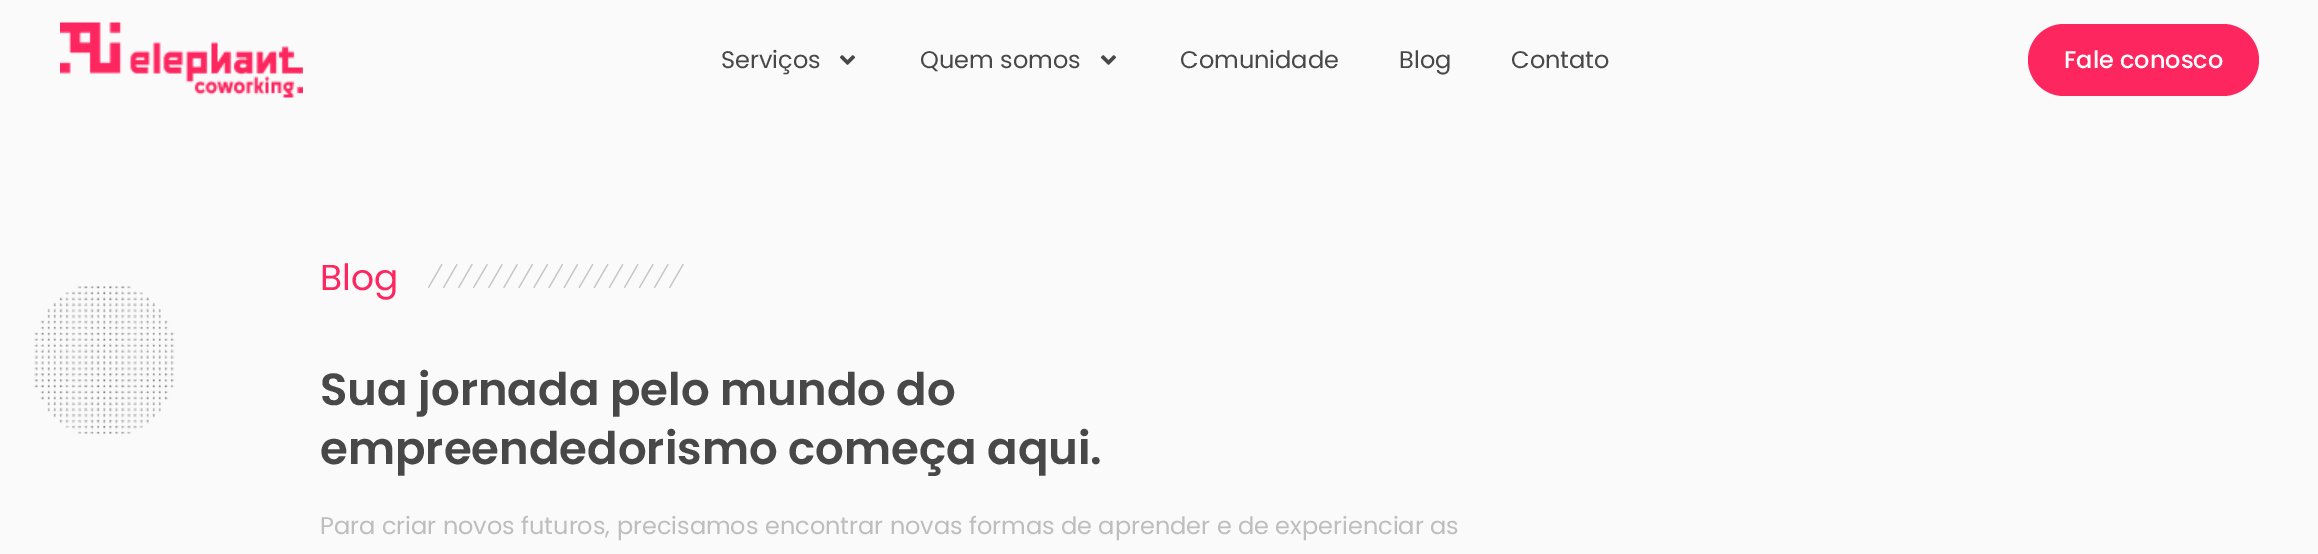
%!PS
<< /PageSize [2318 554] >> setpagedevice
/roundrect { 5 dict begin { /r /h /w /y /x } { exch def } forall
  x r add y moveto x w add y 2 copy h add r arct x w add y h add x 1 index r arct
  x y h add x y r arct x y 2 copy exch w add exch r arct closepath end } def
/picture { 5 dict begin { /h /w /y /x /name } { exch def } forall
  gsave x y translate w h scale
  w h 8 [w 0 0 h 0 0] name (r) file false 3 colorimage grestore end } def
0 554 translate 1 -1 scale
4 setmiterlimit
0.98 setgray
0 0 2318 554 rectfill
(img1.rgb) 60 22 243 76 picture
/Poppins-Regular [24 0 0 -24 0 0] selectfont
0.282 setgray
721 68 moveto (Serviços) show
(img2.rgb) 840 55 15 10 picture
920 68 moveto (Quem somos) show
(img2.rgb) 1101 55 15 10 picture
1180 68 moveto (Comunidade) show
1399 68 moveto (Blog) show
1511 68 moveto (Contato) show
0.996 0.149 0.373 setrgbcolor
2028 24 231 72 36 roundrect fill
/Poppins-Medium [24 0 0 -24 0 0] selectfont
1 setgray
2064 68 moveto (Fale conosco) show
(img3.rgb) 34 286 141 148 picture
/Poppins-Regular [36 0 0 -36 0 0] selectfont
0.996 0.149 0.373 setrgbcolor
320 290 moveto (Blog) show
(img4.rgb) 428 264 256 24 picture
/Poppins-SemiBold [45 0 0 -45 0 0] selectfont
0.282 setgray
320 405 moveto (Sua jornada pelo mundo do) show
320 464 moveto (empreendedorismo começa aqui.) show
/Poppins-Regular [24 0 0 -24 0 0] selectfont
0.745 setgray
320 534 moveto (Para criar novos futuros, precisamos encontrar novas formas de aprender e de experienciar as) show
showpage
